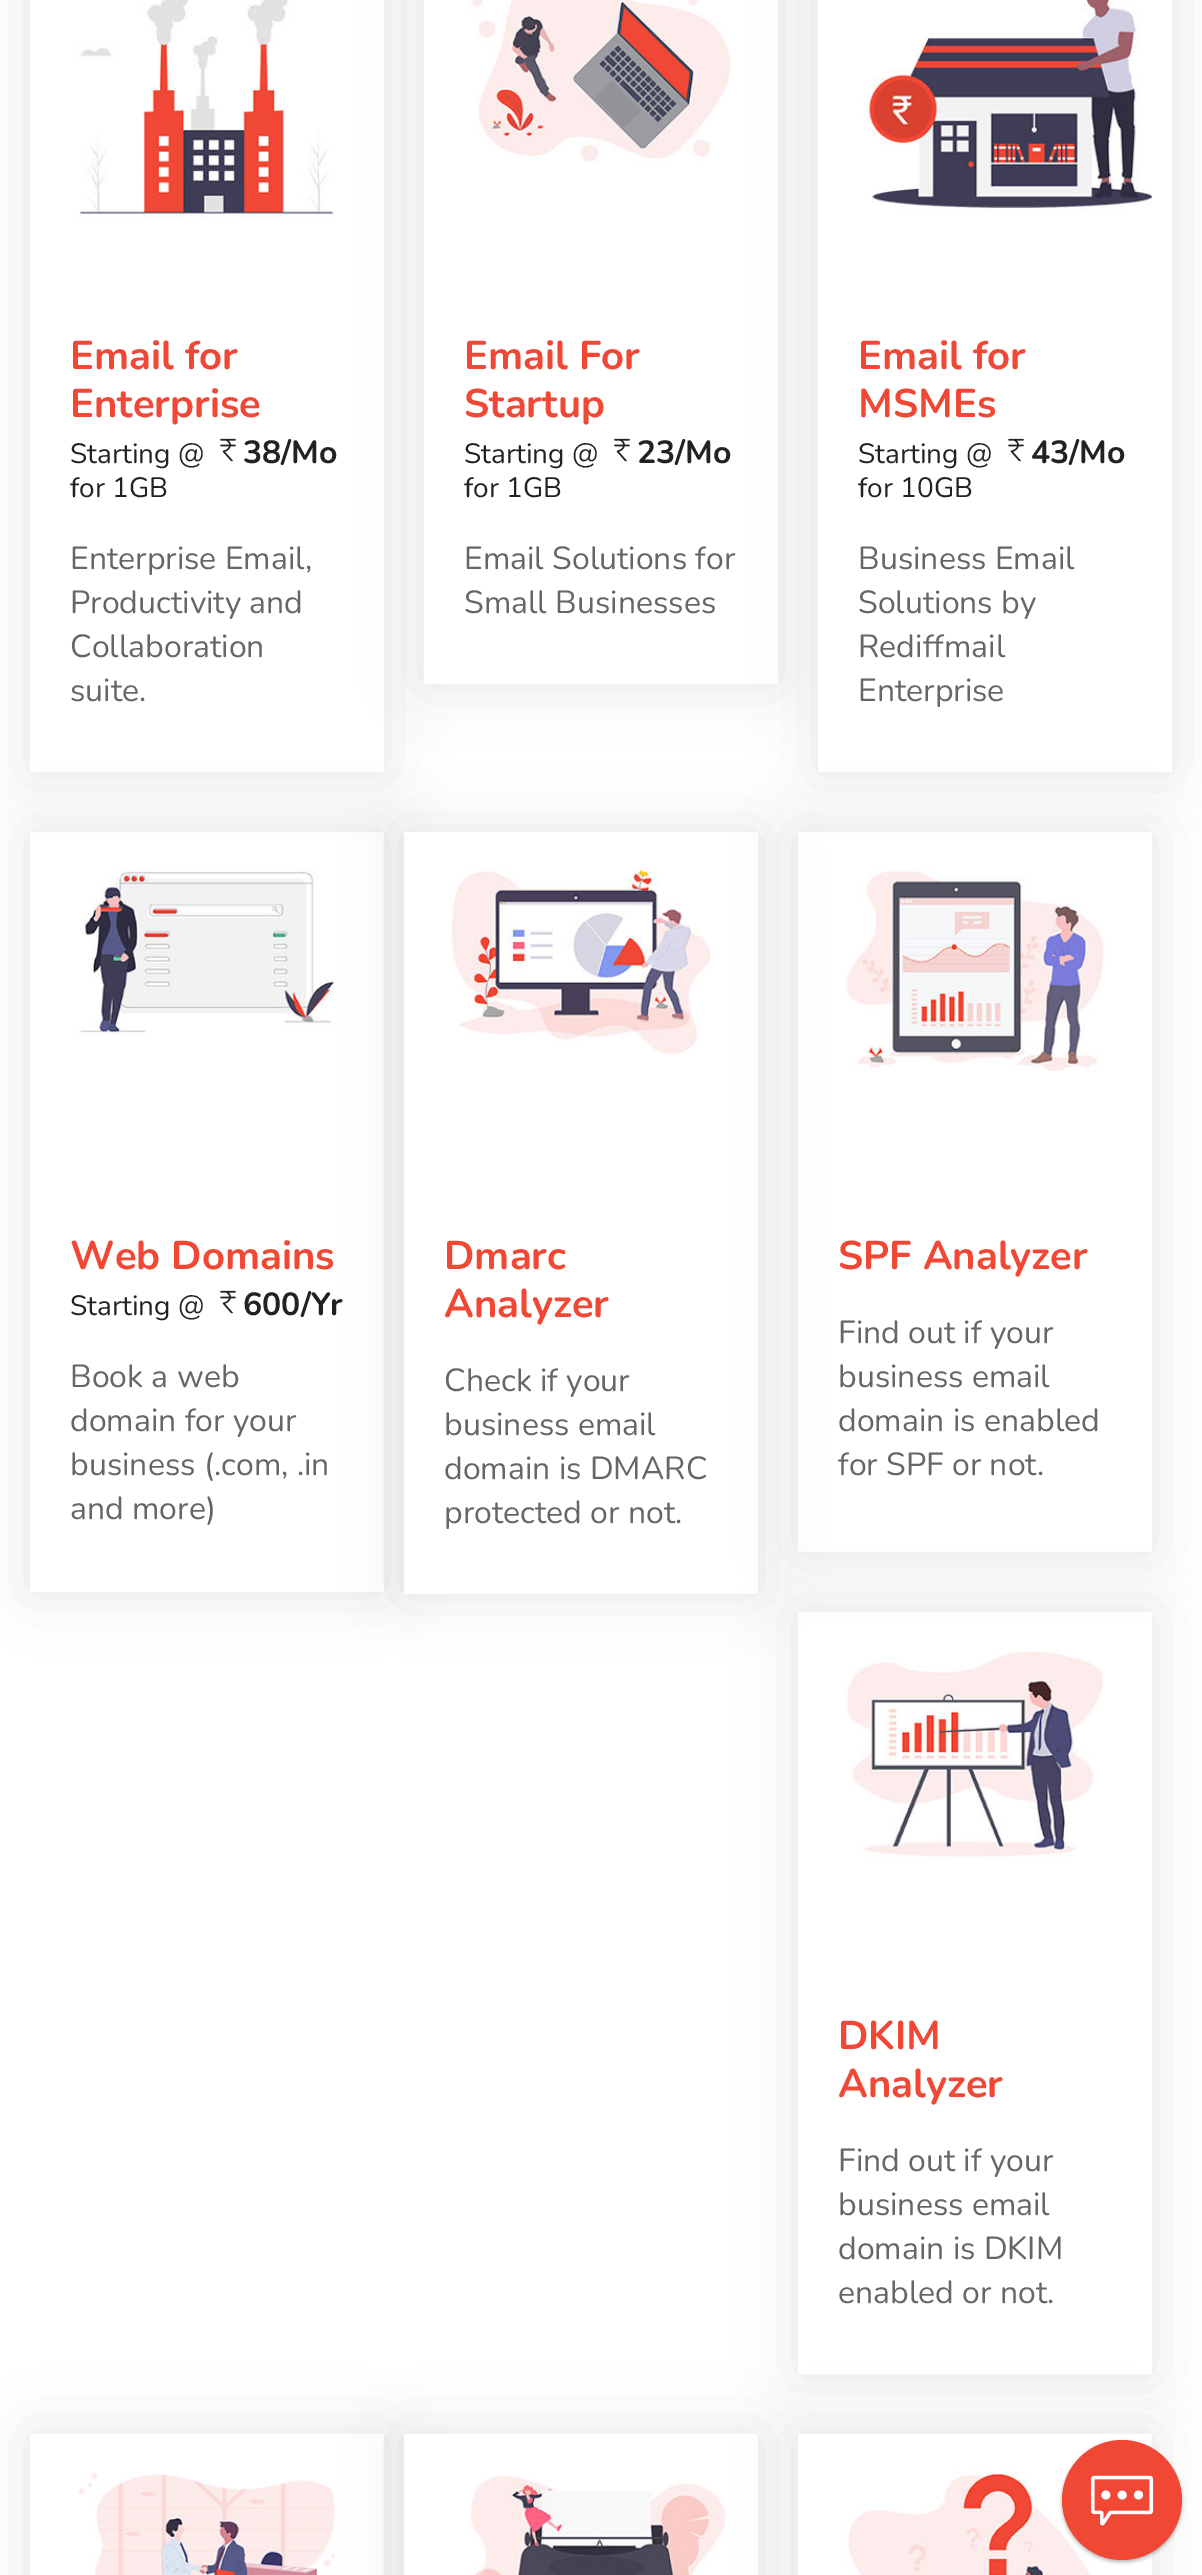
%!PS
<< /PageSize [1202 2575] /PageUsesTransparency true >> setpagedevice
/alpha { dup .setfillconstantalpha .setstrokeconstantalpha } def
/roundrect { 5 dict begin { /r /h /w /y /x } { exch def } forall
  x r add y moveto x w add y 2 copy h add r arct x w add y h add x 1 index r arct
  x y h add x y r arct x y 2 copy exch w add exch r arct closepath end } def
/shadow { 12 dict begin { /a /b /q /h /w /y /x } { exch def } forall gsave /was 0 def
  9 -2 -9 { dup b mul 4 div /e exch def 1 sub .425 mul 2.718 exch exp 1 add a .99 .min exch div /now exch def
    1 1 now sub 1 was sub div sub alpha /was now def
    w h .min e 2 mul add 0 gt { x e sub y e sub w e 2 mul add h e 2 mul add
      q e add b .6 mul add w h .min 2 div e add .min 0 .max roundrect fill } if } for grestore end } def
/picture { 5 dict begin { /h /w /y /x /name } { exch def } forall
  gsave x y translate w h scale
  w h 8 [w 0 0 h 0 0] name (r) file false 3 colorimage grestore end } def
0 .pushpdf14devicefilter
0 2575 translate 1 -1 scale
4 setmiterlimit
1 setgray
0 0 1202 2575 rectfill
gsave
newpath 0 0 moveto 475 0 lineto 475 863 lineto 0 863 lineto closepath 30 -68 moveto 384 -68 lineto 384 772 lineto 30 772 lineto closepath eoclip newpath
0 setgray
30 -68 354 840 0 30 0.1 shadow
grestore
(img1.rgb) 75 0 260 220 picture
/Nunito-Bold [40 0 0 -40 0 0] selectfont
0.945 0.282 0.212 setrgbcolor
70 369 moveto (Email for) show
70 417 moveto (Enterprise) show
/Nunito-Regular [28 0 0 -28 0 0] selectfont
0.133 setgray
70 463 moveto (Starting @) show
(img2.rgb) 220 438 16 24 picture
/Nunito-Bold [32 0 0 -32 0 0] selectfont
243 463 moveto (38/Mo) show
/Nunito-Regular [28 0 0 -28 0 0] selectfont
70 497 moveto (for 1GB) show
/Nunito-Regular [32 0 0 -32 0 0] selectfont
0.4 setgray
70 569 moveto (Enterprise Email,) show
70 613 moveto (Productivity and) show
70 657 moveto (Collaboration) show
70 701 moveto (suite.) show
0 setgray
424 -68 354 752 0 30 0.1 shadow
1 setgray
424 0 354 684 rectfill
(img3.rgb) 469 0 262 162 picture
/Nunito-Bold [40 0 0 -40 0 0] selectfont
0.945 0.282 0.212 setrgbcolor
464 369 moveto (Email For) show
464 417 moveto (Startup) show
/Nunito-Regular [28 0 0 -28 0 0] selectfont
0.133 setgray
464 463 moveto (Starting @) show
(img2.rgb) 614 438 16 24 picture
/Nunito-Bold [32 0 0 -32 0 0] selectfont
637 463 moveto (23/Mo) show
/Nunito-Regular [28 0 0 -28 0 0] selectfont
464 497 moveto (for 1GB) show
/Nunito-Regular [32 0 0 -32 0 0] selectfont
0.4 setgray
464 569 moveto (Email Solutions for) show
464 613 moveto (Small Businesses) show
0 setgray
818 -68 354 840 0 30 0.1 shadow
1 setgray
818 0 354 772 rectfill
(img4.rgb) 863 0 289 212 picture
/Nunito-Bold [40 0 0 -40 0 0] selectfont
0.945 0.282 0.212 setrgbcolor
858 369 moveto (Email for) show
858 417 moveto (MSMEs) show
/Nunito-Regular [28 0 0 -28 0 0] selectfont
0.133 setgray
858 463 moveto (Starting @) show
(img2.rgb) 1008 438 16 24 picture
/Nunito-Bold [32 0 0 -32 0 0] selectfont
1031 463 moveto (43/Mo) show
/Nunito-Regular [28 0 0 -28 0 0] selectfont
858 497 moveto (for 10GB) show
/Nunito-Regular [32 0 0 -32 0 0] selectfont
0.4 setgray
858 569 moveto (Business Email) show
858 613 moveto (Solutions by) show
858 657 moveto (Rediffmail) show
858 701 moveto (Enterprise) show
gsave
newpath 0 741 moveto 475 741 lineto 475 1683 lineto 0 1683 lineto closepath 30 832 moveto 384 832 lineto 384 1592 lineto 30 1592 lineto closepath eoclip newpath
0 setgray
30 832 354 760 0 30 0.1 shadow
grestore
(img5.rgb) 75 869 260 167 picture
/Nunito-Bold [40 0 0 -40 0 0] selectfont
0.945 0.282 0.212 setrgbcolor
70 1269 moveto (Web Domains) show
/Nunito-Regular [28 0 0 -28 0 0] selectfont
0.133 setgray
70 1315 moveto (Starting @) show
(img2.rgb) 220 1290 16 24 picture
/Nunito-Bold [32 0 0 -32 0 0] selectfont
243 1315 moveto (600/Yr) show
/Nunito-Regular [32 0 0 -32 0 0] selectfont
0.4 setgray
70 1387 moveto (Book a web) show
70 1431 moveto (domain for your) show
70 1475 moveto (business \(.com, .in) show
70 1519 moveto (and more\)) show
0 setgray
404 832 354 762 0 30 0.1 shadow
1 setgray
404 832 354 762 rectfill
(img6.rgb) 449 868 264 187 picture
/Nunito-Bold [40 0 0 -40 0 0] selectfont
0.945 0.282 0.212 setrgbcolor
444 1269 moveto (Dmarc) show
444 1317 moveto (Analyzer) show
/Nunito-Regular [32 0 0 -32 0 0] selectfont
0.4 setgray
444 1391 moveto (Check if your) show
444 1435 moveto (business email) show
444 1479 moveto (domain is DMARC) show
444 1523 moveto (protected or not.) show
gsave
newpath 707 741 moveto 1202 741 lineto 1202 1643 lineto 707 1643 lineto closepath 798 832 moveto 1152 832 lineto 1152 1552 lineto 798 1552 lineto closepath eoclip newpath
0 setgray
798 832 354 720 0 30 0.1 shadow
grestore
(img7.rgb) 844 869 263 202 picture
/Nunito-Bold [40 0 0 -40 0 0] selectfont
0.945 0.282 0.212 setrgbcolor
838 1269 moveto (SPF Analyzer) show
/Nunito-Regular [32 0 0 -32 0 0] selectfont
0.4 setgray
838 1343 moveto (Find out if your) show
838 1387 moveto (business email) show
838 1431 moveto (domain is enabled) show
838 1475 moveto (for SPF or not.) show
gsave
newpath 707 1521 moveto 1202 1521 lineto 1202 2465 lineto 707 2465 lineto closepath 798 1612 moveto 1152 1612 lineto 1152 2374 lineto 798 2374 lineto closepath eoclip newpath
0 setgray
798 1612 354 762 0 30 0.1 shadow
grestore
(img8.rgb) 845 1649 258 210 picture
/Nunito-Bold [40 0 0 -40 0 0] selectfont
0.945 0.282 0.212 setrgbcolor
838 2049 moveto (DKIM) show
838 2097 moveto (Analyzer) show
/Nunito-Regular [32 0 0 -32 0 0] selectfont
0.4 setgray
838 2171 moveto (Find out if your) show
838 2215 moveto (business email) show
838 2259 moveto (domain is DKIM) show
838 2303 moveto (enabled or not.) show
gsave
newpath 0 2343 moveto 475 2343 lineto 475 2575 lineto 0 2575 lineto closepath 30 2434 moveto 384 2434 lineto 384 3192 lineto 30 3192 lineto closepath eoclip newpath
0 setgray
30 2434 354 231 0 30 0.1 shadow
grestore
(img9.rgb) 78 2471 258 104 picture
0 setgray
404 2434 354 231 0 30 0.1 shadow
1 setgray
404 2434 354 141 rectfill
(img10.rgb) 466 2475 260 100 picture
0 setgray
798 2434 354 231 0 30 0.1 shadow
1 setgray
798 2434 354 141 rectfill
(img11.rgb) 843 2471 248 104 picture
0 setgray
1062 2442 120 120 60 2 0.3 shadow
0.945 0.282 0.212 setrgbcolor
newpath 1122 2500 60 0 360 arc closepath fill
(img12.rgb) 1091 2475 63 51 picture
.poppdf14devicefilter showpage
